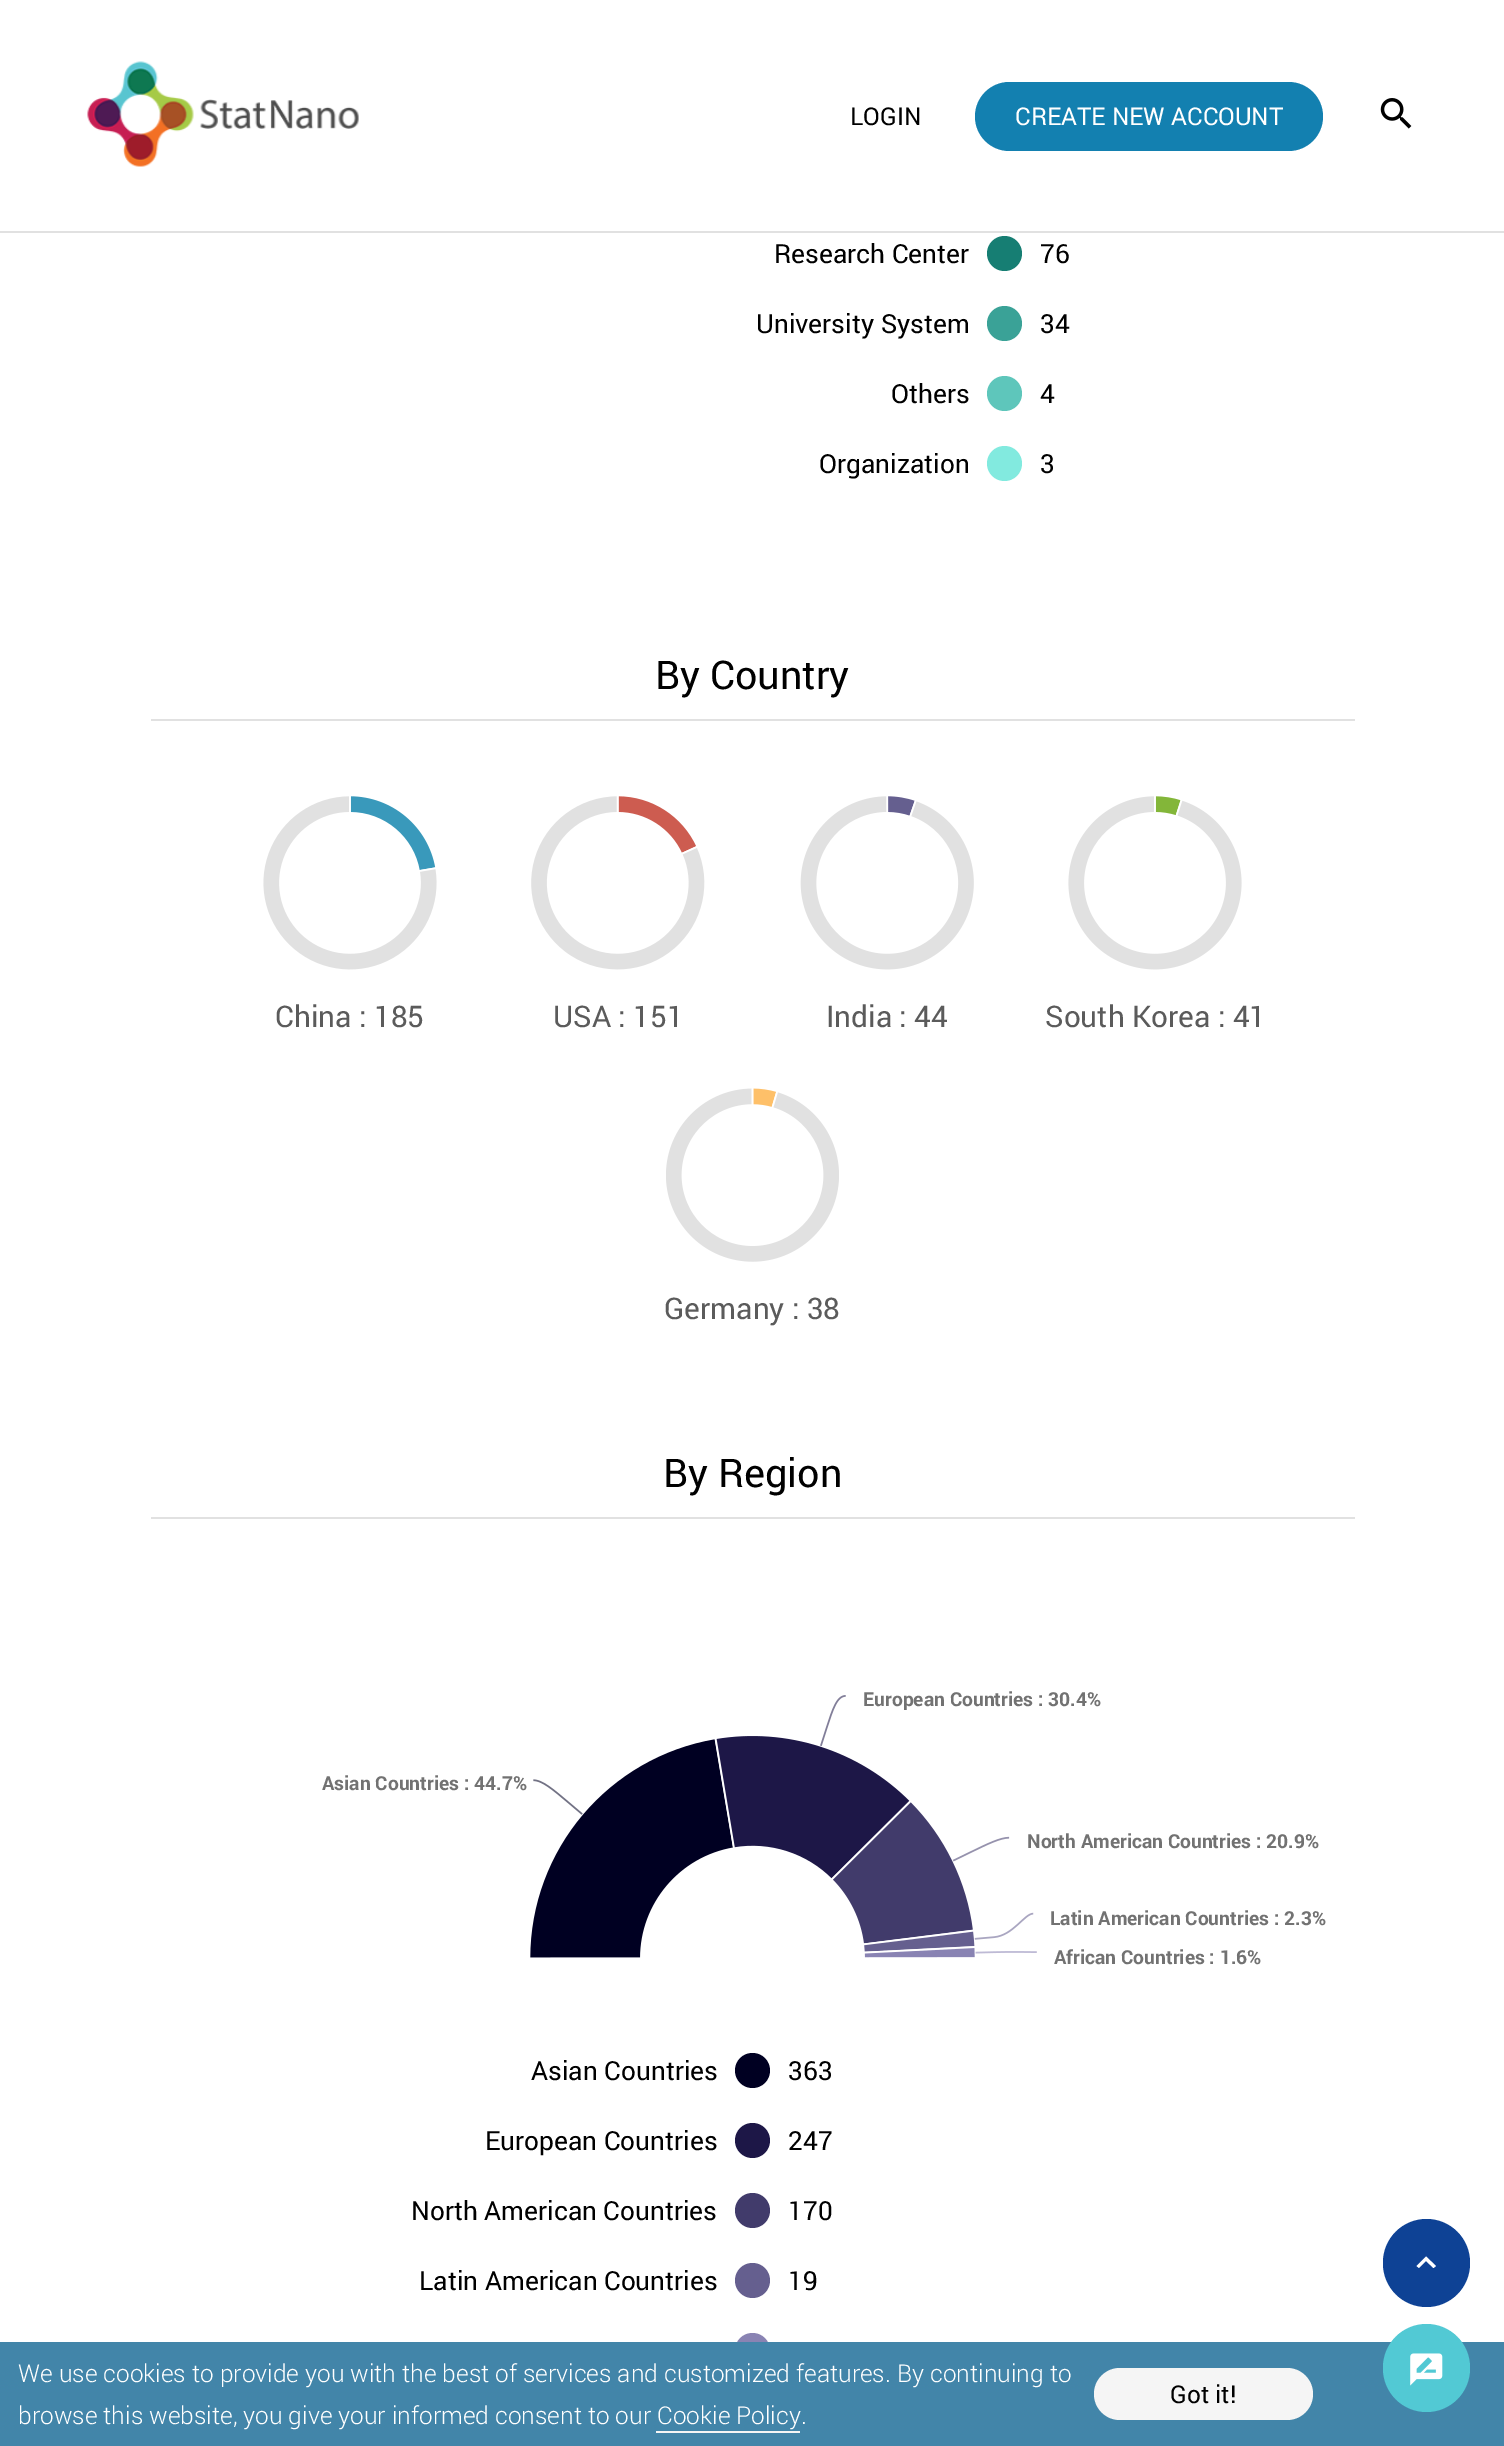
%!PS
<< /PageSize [1504 2446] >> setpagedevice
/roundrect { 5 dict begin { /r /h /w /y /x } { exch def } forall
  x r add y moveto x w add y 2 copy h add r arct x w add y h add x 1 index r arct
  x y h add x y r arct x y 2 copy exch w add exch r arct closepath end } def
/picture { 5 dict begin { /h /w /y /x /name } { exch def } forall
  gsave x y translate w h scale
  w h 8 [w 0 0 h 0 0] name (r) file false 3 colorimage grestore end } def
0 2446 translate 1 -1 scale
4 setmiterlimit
1 setgray
0 0 1504 2446 rectfill
0.882 setgray
0 231 1504 2 rectfill
(img1.rgb) 87 61 272 106 picture
/Roboto-Regular [24.5 0 0 -24.5 0 0] selectfont
0 setgray
850 125 moveto (LOGIN) show
0.075 0.502 0.69 setrgbcolor
975 82 348 69 34.5 roundrect fill
1 setgray
1015 125 moveto (CREATE NEW ACCOUNT) show
(img2.rgb) 1380 98 32 31 picture
/Roboto-Regular [26.25 0 0 -26.25 0 0] selectfont
0 setgray
774 263 moveto (Research Center) show
0.086 0.494 0.451 setrgbcolor
newpath 1004.5 253.5 17.5 0 360 arc closepath fill
0 setgray
1040 263 moveto (76) show
756 333 moveto (University System) show
0.227 0.635 0.592 setrgbcolor
newpath 1004.5 323.5 17.5 0 360 arc closepath fill
0 setgray
1040 333 moveto (34) show
891 403 moveto (Others) show
0.369 0.776 0.733 setrgbcolor
newpath 1004.5 393.5 17.5 0 360 arc closepath fill
0 setgray
1040 403 moveto (4) show
819 473 moveto (Organization) show
0.51 0.918 0.875 setrgbcolor
newpath 1004.5 463.5 17.5 0 360 arc closepath fill
0 setgray
1040 473 moveto (3) show
0.882 setgray
151 719 1204 2 rectfill
/Roboto-Regular [39.5 0 0 -39.5 0 0] selectfont
0 setgray
655 689 moveto (By Country) show
(img3.rgb) 263 796 174 174 picture
/Roboto-Regular [29.75 0 0 -29.75 0 0] selectfont
0.357 setgray
275 1027 moveto (China : 185) show
(img4.rgb) 531 796 174 174 picture
553 1027 moveto (USA : 151) show
(img5.rgb) 800 796 174 174 picture
826 1027 moveto (India : 44) show
(img6.rgb) 1068 796 174 174 picture
1045 1027 moveto (South Korea : 41) show
(img7.rgb) 666 1088 173 174 picture
664 1319 moveto (Germany : 38) show
0.882 setgray
151 1517 1204 2 rectfill
/Roboto-Regular [39.5 0 0 -39.5 0 0] selectfont
0 setgray
663 1487 moveto (By Region) show
(img8.rgb) 530 1695 507 263 picture
/Roboto-Bold [19.25 0 0 -19.25 0 0] selectfont
0.447 setgray
863 1706 moveto (European Countries : 30.4%) show
322 1790 moveto (Asian Countries : 44.7%) show
1027 1848 moveto (North American Countries : 20.9%) show
1050 1925 moveto (Latin American Countries : 2.3%) show
1054 1964 moveto (African Countries : 1.6%) show
/Roboto-Regular [26.25 0 0 -26.25 0 0] selectfont
0 setgray
531 2080 moveto (Asian Countries) show
0 0 0.133 setrgbcolor
newpath 752.5 2070.5 17.5 0 360 arc closepath fill
0 setgray
788 2080 moveto (363) show
485 2150 moveto (European Countries) show
0.114 0.09 0.278 setrgbcolor
newpath 752.5 2140.5 17.5 0 360 arc closepath fill
0 setgray
788 2150 moveto (247) show
411 2220 moveto (North American Countries) show
0.255 0.231 0.42 setrgbcolor
newpath 752.5 2210.5 17.5 0 360 arc closepath fill
0 setgray
788 2220 moveto (170) show
419 2290 moveto (Latin American Countries) show
0.396 0.373 0.561 setrgbcolor
newpath 752.5 2280.5 17.5 0 360 arc closepath fill
0 setgray
788 2290 moveto (19) show
0.537 0.514 0.702 setrgbcolor
newpath 752.5 2350.5 17.5 0 360 arc closepath fill
0.259 0.522 0.663 setrgbcolor
0 2342 1504 104 rectfill
/Roboto-Light [24.5 0 0 -24.5 0 0] selectfont
1 setgray
18 2382 moveto (We use cookies to provide you with the best of services and customized features. By continuing to) show
18 2424 moveto (browse this website, you give your informed consent to our Cookie Policy.) show
0.961 setgray
656 2431 144 2 rectfill
1094 2368 219 52 26 roundrect fill
/Roboto-Regular [24.5 0 0 -24.5 0 0] selectfont
0 setgray
1170 2403 moveto (Got it!) show
0.055 0.259 0.584 setrgbcolor
1383 2219 87 88 43.5 roundrect fill
1 setgray
newpath 1419 2268 moveto 1426 2261 lineto 1433.5 2268 lineto 1436 2266 lineto 1426 2256.5 lineto 1416.5 2266 lineto closepath fill
0.322 0.788 0.831 setrgbcolor
1383 2324 87 88 43.5 roundrect fill
(img9.rgb) 1410 2353 33 33 picture
showpage
